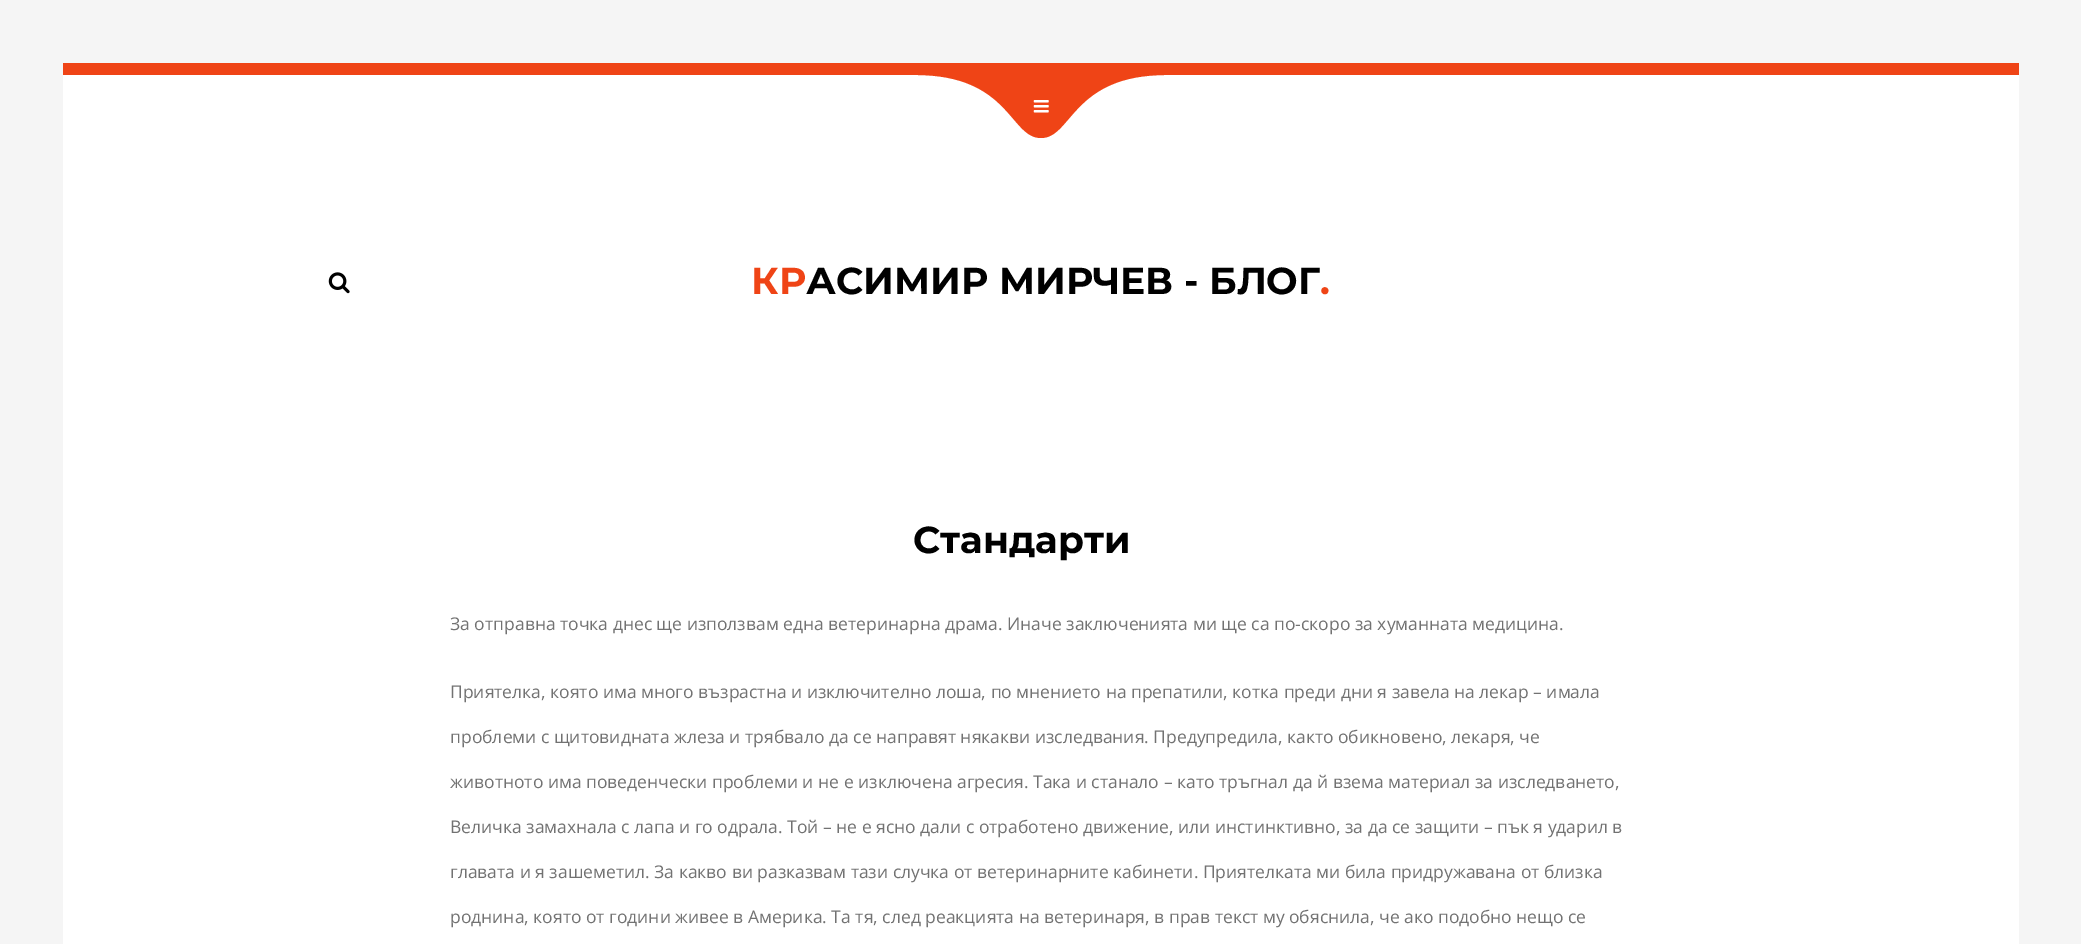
%!PS
<< /PageSize [2081 944] >> setpagedevice
/picture { 5 dict begin { /h /w /y /x /name } { exch def } forall
  gsave x y translate w h scale
  w h 8 [w 0 0 h 0 0] name (r) file false 3 colorimage grestore end } def
0 944 translate 1 -1 scale
4 setmiterlimit
0.961 setgray
0 0 2081 944 rectfill
1 setgray
63 75 1956 869 rectfill
0.937 0.267 0.086 setrgbcolor
63 63 1956 12 rectfill
newpath 916 75 moveto 1010 75 1010 138 1041 138 curveto 1072 138 1072 75 1166 75 curveto fill
(img1.rgb) 1033 100 16 13 picture
(img2.rgb) 328 272 22 22 picture
/Montserrat-Bold [37.5 0 0 -37.5 0 0] selectfont
751 294 moveto (КР) show
0 setgray
806 294 moveto (АСИМИР МИРЧЕВ - БЛОГ) show
0.937 0.267 0.086 setrgbcolor
1320 294 moveto (.) show
0 setgray
913 553 moveto (Стандарти) show
/OpenSans-Regular [17.5 0 0 -17.5 0 0] selectfont
0.447 setgray
450 630 moveto (За отправна точка днес ще използвам една ветеринарна драма. Иначе заключенията ми ще са по-скоро за хуманната медицина.) show
450 698 moveto (Приятелка, която има много възрастна и изключително лоша, по мнението на препатили, котка преди дни я завела на лекар – имала) show
450 743 moveto (проблеми с щитовидната жлеза и трябвало да се направят някакви изследвания. Предупредила, както обикновено, лекаря, че) show
450 788 moveto (животното има поведенчески проблеми и не е изключена агресия. Така и станало – като тръгнал да й взема материал за изследването,) show
450 833 moveto (Величка замахнала с лапа и го одрала. Той – не е ясно дали с отработено движение, или инстинктивно, за да се защити – пък я ударил в) show
450 878 moveto (главата и я зашеметил. За какво ви разказвам тази случка от ветеринарните кабинети. Приятелката ми била придружавана от близка) show
450 923 moveto (роднина, която от години живее в Америка. Та тя, след реакцията на ветеринаря, в прав текст му обяснила, че ако подобно нещо се) show
showpage
